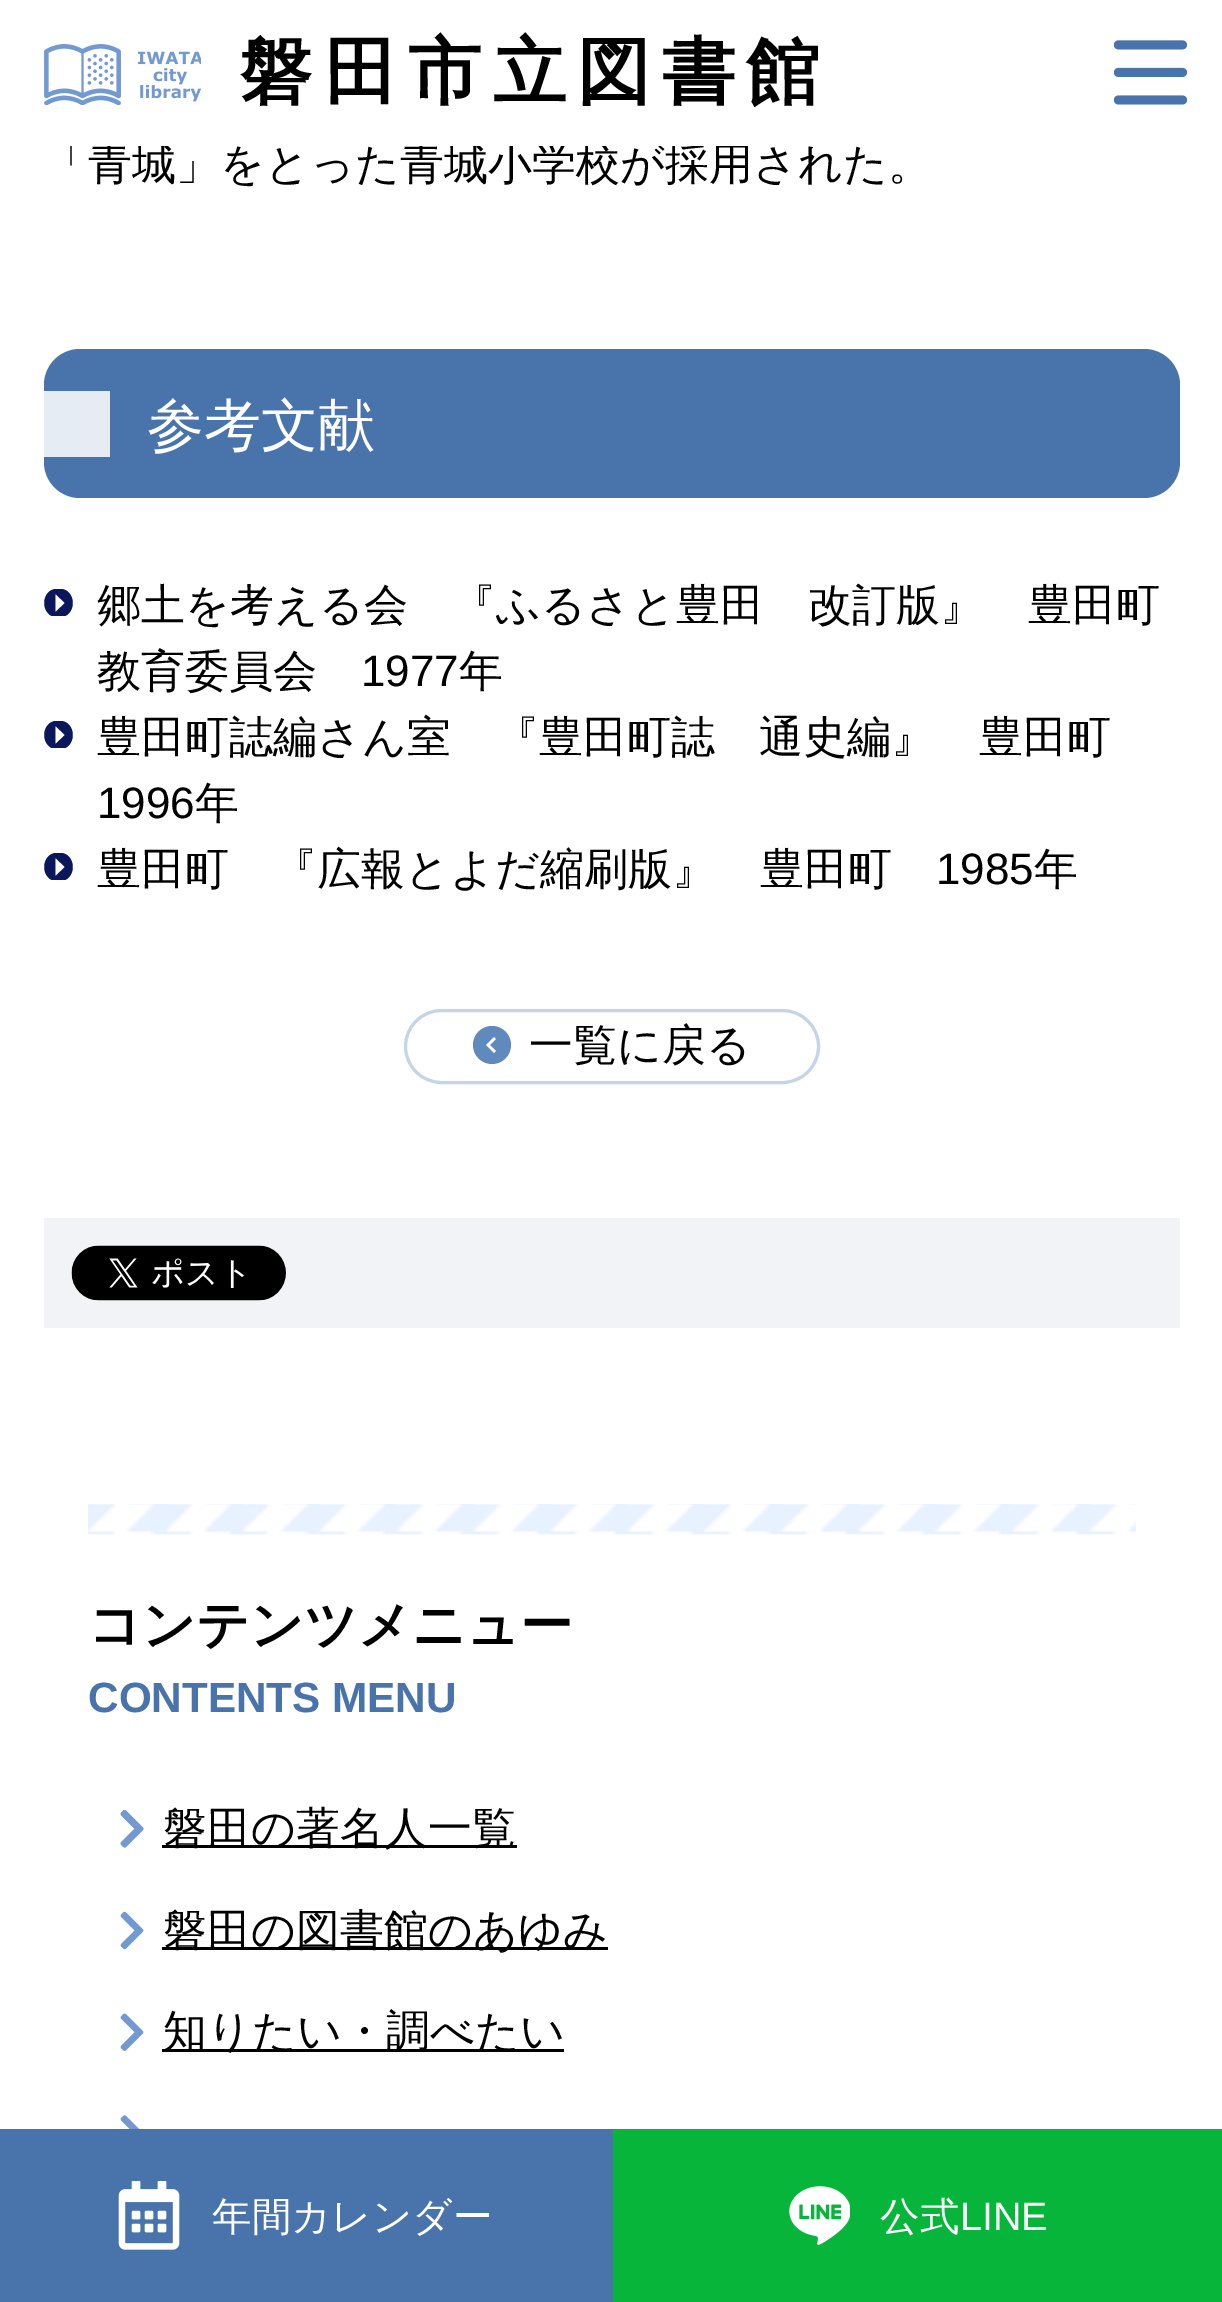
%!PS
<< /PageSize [1222 2302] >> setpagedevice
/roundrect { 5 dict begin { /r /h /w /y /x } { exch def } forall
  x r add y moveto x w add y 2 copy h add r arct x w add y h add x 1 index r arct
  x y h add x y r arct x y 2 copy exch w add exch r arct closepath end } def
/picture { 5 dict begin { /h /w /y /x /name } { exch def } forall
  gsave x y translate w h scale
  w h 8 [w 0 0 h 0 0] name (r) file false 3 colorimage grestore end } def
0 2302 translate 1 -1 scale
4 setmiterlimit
1 setgray
0 0 1222 2302 rectfill
/WenQuanYiZenHei-Medium [44 0 0 -44 0 0] selectfont
0 setgray
44 179 moveto (「青城」をとった青城小学校が採用された。) show
1 setgray
70 142 679 4 rectfill
(img1.rgb) 44 44 157 61 picture
/WenQuanYiZenHei-Bold [73.5 0 0 -73.5 0 0] selectfont
0 setgray
239 97 moveto 11 0 (磐田市立図書館) ashow
(img2.rgb) 1114 40 73 65 picture
0.286 0.455 0.671 setrgbcolor
44 349 1136 149 36 roundrect fill
0.898 0.925 0.957 setrgbcolor
44 391 66 66 rectfill
/WenQuanYiZenHei-Medium [57 0 0 -57 0 0] selectfont
1 setgray
147 445 moveto (参考文献) show
gsave
44 589 29 27 rectclip
0.047 0.086 0.357 setrgbcolor
newpath 58.5 617.5 moveto 39.5 617.5 39.5 588.5 58.5 588.5 curveto 77.5 588.5 77.5 617.5 58.5 617.5 curveto closepath fill
grestore
newpath 64.5 603 moveto 55.5 611.5 lineto 55.5 594.5 lineto closepath fill
/WenQuanYiZenHei-Medium [44 0 0 -44 0 0] selectfont
0 setgray
97 620 moveto (郷土を考える会　『ふるさと豊田　改訂版』　豊田町) show
97 686 moveto (教育委員会) show
/LiberationSans-Regular [44 0 0 -44 0 0] selectfont
361 686 moveto (1977) show
/WenQuanYiZenHei-Medium [44 0 0 -44 0 0] selectfont
459 686 moveto (年) show
gsave
44 721 29 27 rectclip
0.047 0.086 0.357 setrgbcolor
newpath 58.5 749.5 moveto 39.5 749.5 39.5 720.5 58.5 720.5 curveto 77.5 720.5 77.5 749.5 58.5 749.5 curveto closepath fill
grestore
1 setgray
newpath 64.5 735 moveto 55.5 743.5 lineto 55.5 726.5 lineto closepath fill
0 setgray
97 752 moveto (豊田町誌編さん室　『豊田町誌　通史編』　豊田町) show
/LiberationSans-Regular [44 0 0 -44 0 0] selectfont
97 818 moveto (1996) show
/WenQuanYiZenHei-Medium [44 0 0 -44 0 0] selectfont
195 818 moveto (年) show
gsave
44 853 29 27 rectclip
0.047 0.086 0.357 setrgbcolor
newpath 58.5 881.5 moveto 39.5 881.5 39.5 852.5 58.5 852.5 curveto 77.5 852.5 77.5 881.5 58.5 881.5 curveto closepath fill
grestore
1 setgray
newpath 64.5 867 moveto 55.5 875.5 lineto 55.5 858.5 lineto closepath fill
0 setgray
97 884 moveto (豊田町　『広報とよだ縮刷版』　豊田町) show
/LiberationSans-Regular [44 0 0 -44 0 0] selectfont
936 884 moveto (1985) show
/WenQuanYiZenHei-Medium [44 0 0 -44 0 0] selectfont
1034 884 moveto (年) show
0.376 0.541 0.745 setrgbcolor
newpath 492 1045 19 0 360 arc closepath fill
1 setgray
2.8 setlinewidth
newpath 495 1038 moveto 488 1045 lineto 495 1052 lineto stroke
0.773 0.831 0.91 setrgbcolor
3 setlinewidth
405.5 1010.5 413 72 36 roundrect stroke
0 setgray
529 1060 moveto (一覧に戻る) show
0.949 0.953 0.969 setrgbcolor
44 1218 1136 110 rectfill
(img3.rgb) 71 1245 215 56 picture
(img4.rgb) 88 1504 1048 31 picture
/WenQuanYiZenHei-Bold [52.75 0 0 -52.75 0 0] selectfont
0 setgray
88 1643 moveto (コンテンツメニュー) show
/LiberationSans-Bold [42.25 0 0 -42.25 0 0] selectfont
0.286 0.455 0.671 setrgbcolor
88 1712 moveto (CONTENTS MENU) show
(img5.rgb) 120 1810 24 38 picture
(img6.rgb) 120 1810 24 38 picture
0 setgray
162 1845 355 3 rectfill
/WenQuanYiZenHei-Medium [44 0 0 -44 0 0] selectfont
163 1843 moveto (磐田の著名人一覧) show
(img7.rgb) 120 1911 24 39 picture
162 1947 446 3 rectfill
163 1945 moveto (磐田の図書館のあゆみ) show
(img8.rgb) 120 2013 24 38 picture
162 2049 402 3 rectfill
163 2046 moveto (知りたい・調べたい) show
(img9.rgb) 120 2115 20 14 picture
0.286 0.455 0.671 setrgbcolor
0 2129 613 173 rectfill
(img10.rgb) 118 2181 62 69 picture
/WenQuanYiZenHei-Medium [39.5 0 0 -39.5 0 0] selectfont
1 setgray
212 2230 moveto (年間カレンダー) show
0.027 0.71 0.231 setrgbcolor
613 2129 609 173 rectfill
(img11.rgb) 789 2186 61 59 picture
1 setgray
880 2230 moveto (公式) show
/LiberationSans-Regular [39.5 0 0 -39.5 0 0] selectfont
960 2230 moveto (LINE) show
showpage
